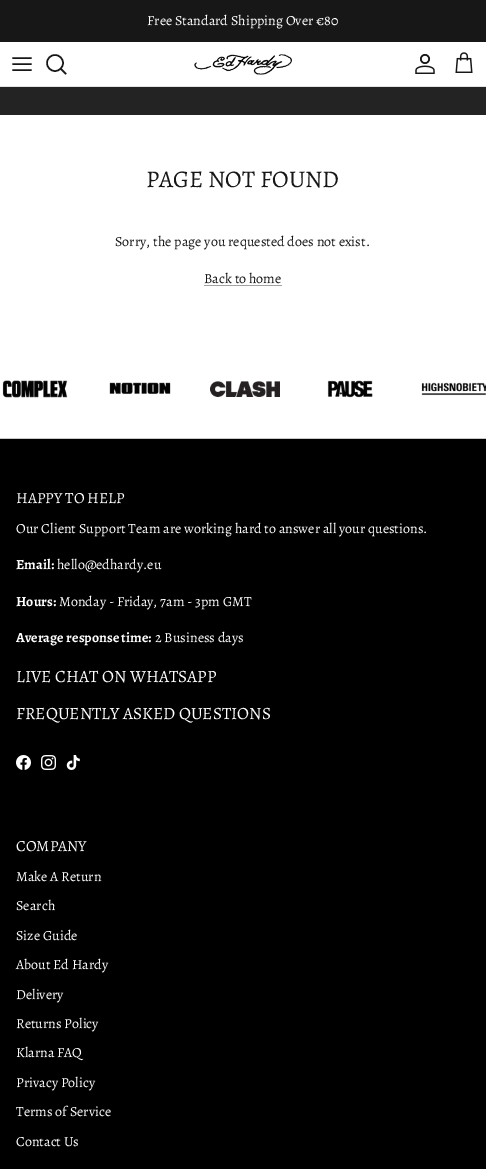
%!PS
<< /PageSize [486 1169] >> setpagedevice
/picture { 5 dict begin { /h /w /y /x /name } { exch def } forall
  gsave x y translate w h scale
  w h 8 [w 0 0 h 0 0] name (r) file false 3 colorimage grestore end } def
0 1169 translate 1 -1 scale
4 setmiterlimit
1 setgray
0 0 486 1169 rectfill
0.09 setgray
0 0 486 42 rectfill
/Alegreya-Regular [14 0 0 -14 0 0] selectfont
1 setgray
147 25 moveto (Free Standard Shipping Over €80) show
0.886 setgray
0 86 486 1 rectfill
0.09 setgray
1.5 setlinewidth
1 setlinecap
1 setlinejoin
newpath 13 64 moveto 31 64 lineto 13 58 moveto 31 58 lineto 13 70 moveto 31 70 lineto stroke
0 setlinecap
0 setlinejoin
newpath 55 63 8 0 360 arc closepath stroke
2 setlinecap
newpath 61 69 moveto 65.5 73.5 lineto stroke
(img1.rgb) 194 54 98 21 picture
(img2.rgb) 415 54 20 20 picture
(img3.rgb) 455 52 18 21 picture
0.137 setgray
0 87 486 28 rectfill
/Alegreya-Regular [24 0 0 -24 0 0] selectfont
0.09 setgray
146 187 moveto (PAGE NOT FOUND) show
/Alegreya-Regular [14 0 0 -14 0 0] selectfont
115 246 moveto (Sorry, the page you requested does not exist.) show
204 283 moveto (Back to home) show
0.635 setgray
204 285 78 1 rectfill
(img4.rgb) 2 380 66 18 picture
(img5.rgb) 109 382 62 12 picture
(img6.rgb) 210 381 70 16 picture
(img7.rgb) 327 380 46 18 picture
(img8.rgb) 421 382 65 14 picture
0 setgray
0 439 486 730 rectfill
0.784 setgray
0 438 486 1 rectfill
/Alegreya-Regular [15.5 0 0 -15.5 0 0] selectfont
1 setgray
16 503 moveto (HAPPY TO HELP) show
/Alegreya-Regular [14 0 0 -14 0 0] selectfont
16 533 moveto (Our Client Support Team are working hard to answer all your questions.) show
/Alegreya-Bold [14 0 0 -14 0 0] selectfont
16 569 moveto (Email:) show
/Alegreya-Regular [14 0 0 -14 0 0] selectfont
57 569 moveto (hello@edhardy.eu) show
/Alegreya-Bold [14 0 0 -14 0 0] selectfont
16 606 moveto (Hours:) show
/Alegreya-Regular [14 0 0 -14 0 0] selectfont
59 606 moveto (Monday - Friday, 7am - 3pm GMT) show
/Alegreya-Bold [14 0 0 -14 0 0] selectfont
16 642 moveto (Average response time:) show
/Alegreya-Regular [14 0 0 -14 0 0] selectfont
155 642 moveto (2 Business days) show
/Alegreya-Regular [17.25 0 0 -17.25 0 0] selectfont
16 682 moveto (LIVE CHAT ON WHATSAPP) show
16 719 moveto (FREQUENTLY ASKED QUESTIONS) show
(img9.rgb) 16 755 15 15 picture
(img10.rgb) 41 755 15 15 picture
(img11.rgb) 66 755 14 15 picture
/Alegreya-Regular [15.5 0 0 -15.5 0 0] selectfont
16 851 moveto (COMPANY) show
/Alegreya-Regular [14 0 0 -14 0 0] selectfont
16 881 moveto (Make A Return) show
16 910 moveto (Search) show
16 940 moveto (Size Guide) show
16 969 moveto (About Ed Hardy) show
16 999 moveto (Delivery) show
16 1028 moveto (Returns Policy) show
16 1057 moveto (Klarna FAQ) show
16 1087 moveto (Privacy Policy) show
16 1116 moveto (Terms of Service) show
16 1146 moveto (Contact Us) show
showpage
